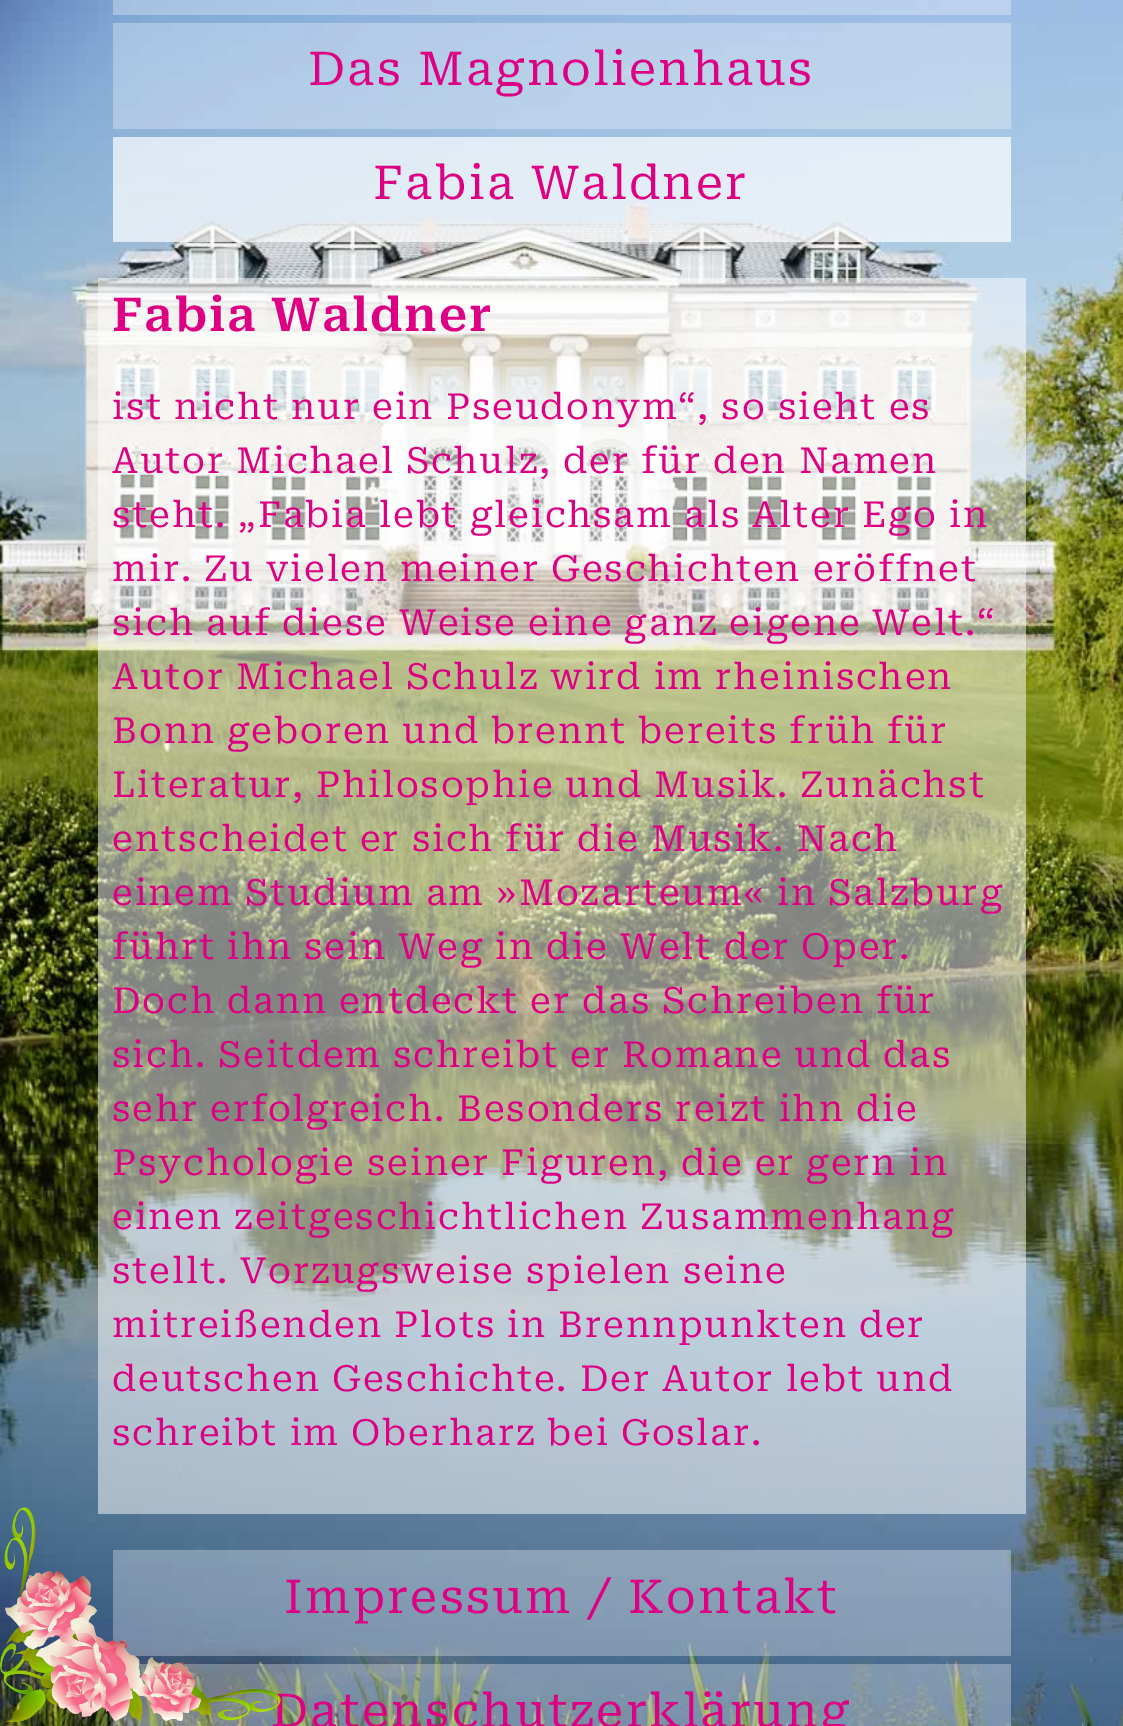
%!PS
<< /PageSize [1123 1726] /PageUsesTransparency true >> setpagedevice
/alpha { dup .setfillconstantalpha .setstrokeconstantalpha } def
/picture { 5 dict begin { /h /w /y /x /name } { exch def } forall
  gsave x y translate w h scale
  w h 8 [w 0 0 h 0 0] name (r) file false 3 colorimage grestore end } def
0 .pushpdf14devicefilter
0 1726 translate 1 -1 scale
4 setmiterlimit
1 setgray
0 0 1123 1726 rectfill
(img1.rgb) 0 0 1123 1726 picture
(img2.rgb) 1122 264 1 1462 picture
0.3 alpha
113 0 898 15 rectfill
113 23 898 106 rectfill
/RobotoSerif-Regular [46.75 0 0 -46.75 0 0] selectfont
1 alpha
0.867 0 0.51 setrgbcolor
308 85 moveto 2.3 0 (Das Magnolienhaus) ashow
0.7 alpha
1 setgray
113 137 898 105 rectfill
1 alpha
0.867 0 0.51 setrgbcolor
373 199 moveto 2.3 0 (Fabia Waldner) ashow
0.5 alpha
1 setgray
98 278 928 1236 rectfill
/RobotoSerif-SemiBold [46.75 0 0 -46.75 0 0] selectfont
1 alpha
0.867 0 0.51 setrgbcolor
112 331 moveto 1.8 0 (Fabia Waldner) ashow
/RobotoSerif-Regular [36 0 0 -36 0 0] selectfont
112 419 moveto 1.8 0 (ist nicht nur ein Pseudonym“, so sieht es) ashow
112 473 moveto 1.8 0 (Autor Michael Schulz, der für den Namen) ashow
112 527 moveto 1.8 0 (steht. „Fabia lebt gleichsam als Alter Ego in) ashow
112 581 moveto 1.8 0 (mir. Zu vielen meiner Geschichten eröffnet) ashow
112 635 moveto 1.8 0 (sich auf diese Weise eine ganz eigene Welt.“) ashow
112 689 moveto 1.8 0 (Autor Michael Schulz wird im rheinischen) ashow
112 743 moveto 1.8 0 (Bonn geboren und brennt bereits früh für) ashow
112 797 moveto 1.8 0 (Literatur, Philosophie und Musik. Zunächst) ashow
112 851 moveto 1.8 0 (entscheidet er sich für die Musik. Nach) ashow
112 905 moveto 1.8 0 (einem Studium am »Mozarteum« in Salzburg) ashow
112 959 moveto 1.8 0 (führt ihn sein Weg in die Welt der Oper.) ashow
112 1013 moveto 1.8 0 (Doch dann entdeckt er das Schreiben für) ashow
112 1067 moveto 1.8 0 (sich. Seitdem schreibt er Romane und das) ashow
112 1121 moveto 1.8 0 (sehr erfolgreich. Besonders reizt ihn die) ashow
112 1175 moveto 1.8 0 (Psychologie seiner Figuren, die er gern in) ashow
112 1229 moveto 1.8 0 (einen zeitgeschichtlichen Zusammenhang) ashow
112 1283 moveto 1.8 0 (stellt. Vorzugsweise spielen seine) ashow
112 1337 moveto 1.8 0 (mitreißenden Plots in Brennpunkten der) ashow
112 1391 moveto 1.8 0 (deutschen Geschichte. Der Autor lebt und) ashow
112 1445 moveto 1.8 0 (schreibt im Oberharz bei Goslar.) ashow
0.3 alpha
1 setgray
113 1550 898 106 rectfill
113 1664 898 62 rectfill
/RobotoSerif-Regular [46.75 0 0 -46.75 0 0] selectfont
1 alpha
0.867 0 0.51 setrgbcolor
271 1727 moveto 2.3 0 (Datenschutzerklärung) ashow
(img3.rgb) 0 1507 281 219 picture
284 1613 moveto 2.3 0 (Impressum / Kontakt) ashow
.poppdf14devicefilter showpage
